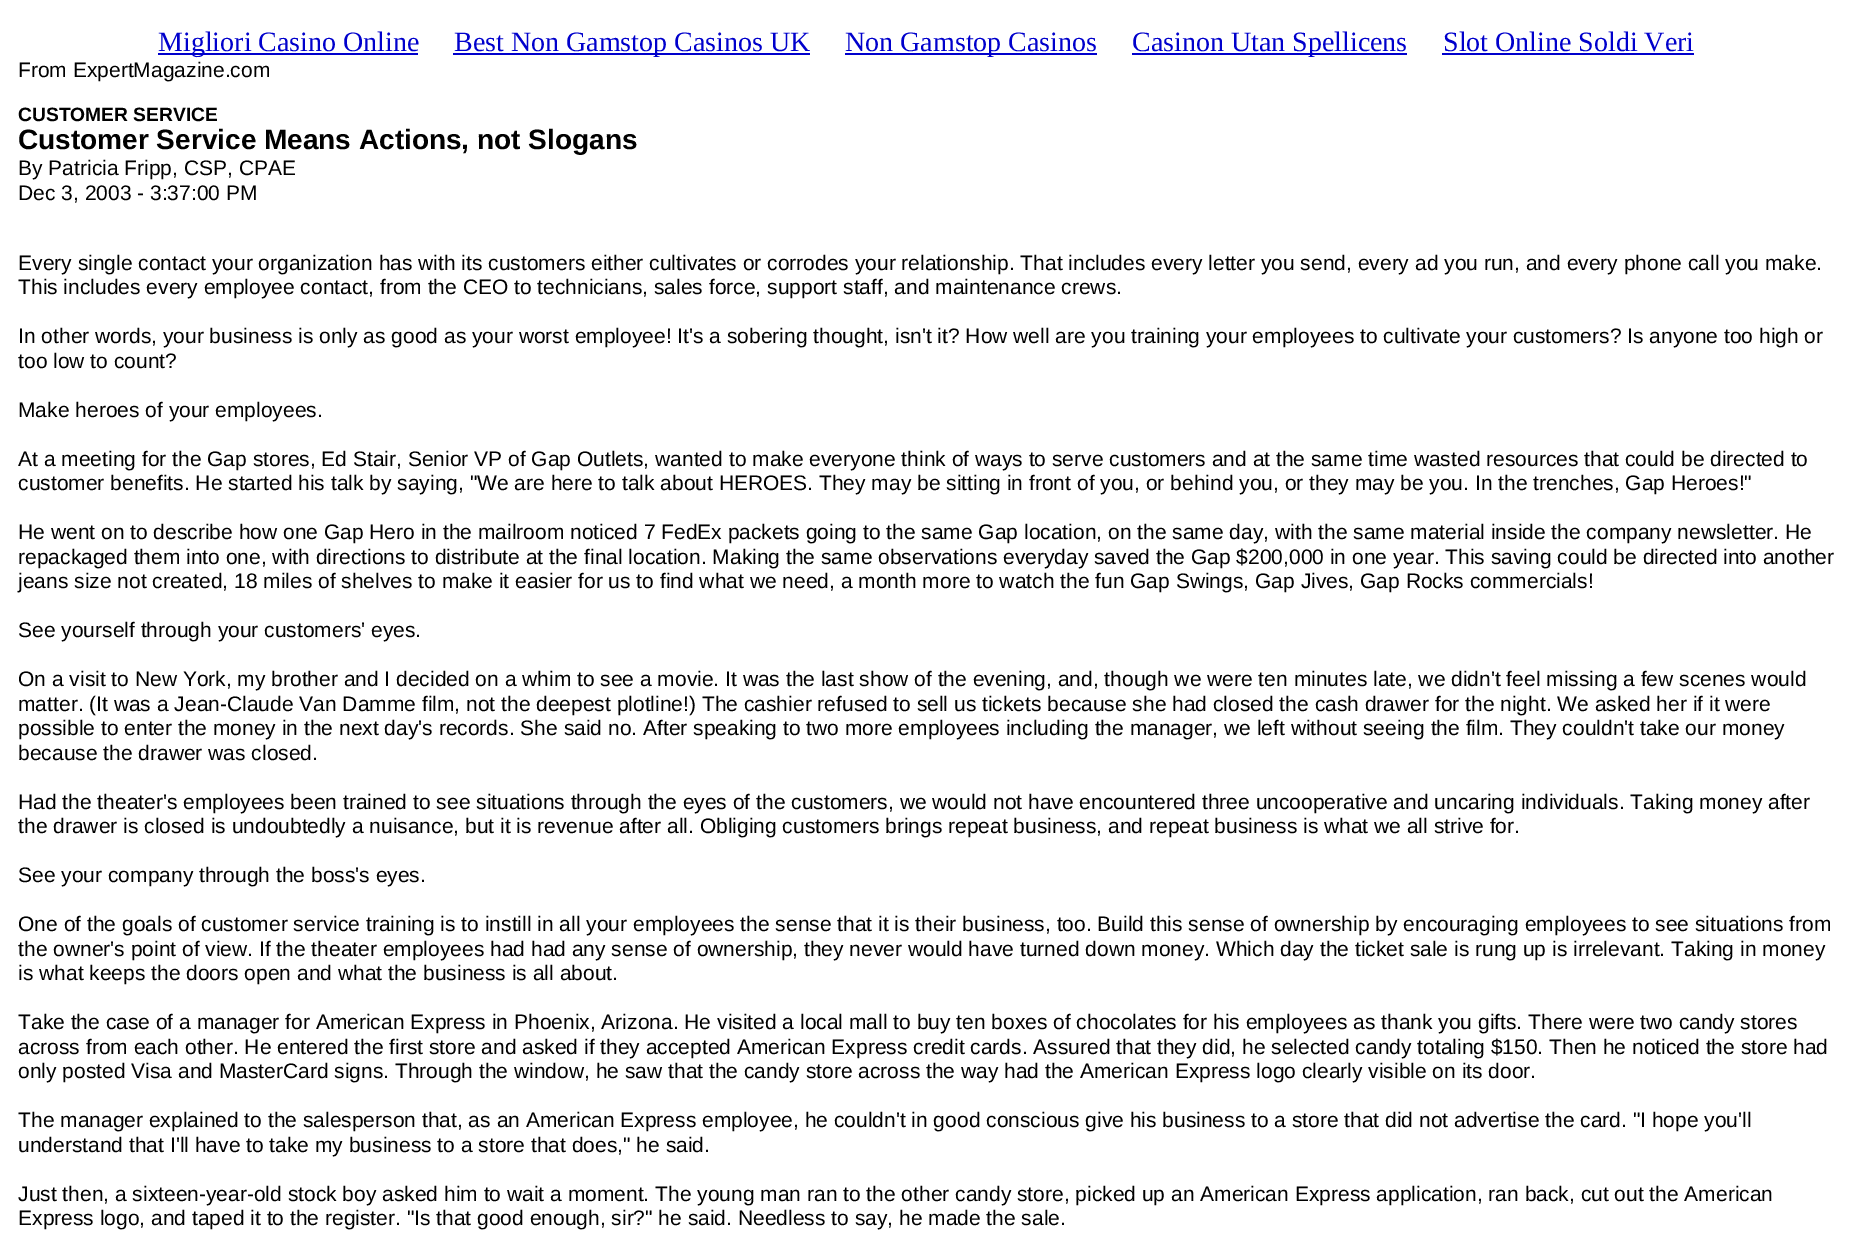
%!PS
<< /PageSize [1851 1256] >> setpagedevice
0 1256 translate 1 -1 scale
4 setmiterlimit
1 setgray
0 0 1851 1256 rectfill
0 0 0.8 setrgbcolor
158 53 260 2 rectfill
/LiberationSerif-Regular [28 0 0 -28 0 0] selectfont
158 51 moveto (Migliori Casino Online) show
453 53 357 2 rectfill
454 51 moveto (Best Non Gamstop Casinos UK) show
845 53 252 2 rectfill
845 51 moveto (Non Gamstop Casinos) show
1132 53 275 2 rectfill
1132 51 moveto (Casinon Utan Spellicens) show
1443 51 moveto (Slot Online Soldi Veri) show
1442 53 252 2 rectfill
/LiberationSans-Regular [21 0 0 -21 0 0] selectfont
0 setgray
18 77 moveto (From ExpertMagazine.com) show
/LiberationSans-Bold [19.25 0 0 -19.25 0 0] selectfont
18 121 moveto (CUSTOMER SERVICE) show
/LiberationSans-Bold [28 0 0 -28 0 0] selectfont
18 149 moveto (Customer Service Means Actions, not Slogans) show
/LiberationSans-Regular [21 0 0 -21 0 0] selectfont
18 175 moveto (By Patricia Fripp, CSP, CPAE) show
18 200 moveto (Dec 3, 2003 - 3:37:00 PM) show
18 270 moveto (Every single contact your organization has with its customers either cultivates or corrodes your relationship. That includes every letter you send, every ad you run, and every phone call you make.) show
18 294 moveto (This includes every employee contact, from the CEO to technicians, sales force, support staff, and maintenance crews.) show
18 343 moveto (In other words, your business is only as good as your worst employee! It's a sobering thought, isn't it? How well are you training your employees to cultivate your customers? Is anyone too high or) show
18 368 moveto (too low to count?) show
18 417 moveto (Make heroes of your employees.) show
18 466 moveto (At a meeting for the Gap stores, Ed Stair, Senior VP of Gap Outlets, wanted to make everyone think of ways to serve customers and at the same time wasted resources that could be directed to) show
18 490 moveto (customer benefits. He started his talk by saying, "We are here to talk about HEROES. They may be sitting in front of you, or behind you, or they may be you. In the trenches, Gap Heroes!") show
18 539 moveto (He went on to describe how one Gap Hero in the mailroom noticed 7 FedEx packets going to the same Gap location, on the same day, with the same material inside the company newsletter. He) show
18 564 moveto (repackaged them into one, with directions to distribute at the final location. Making the same observations everyday saved the Gap $200,000 in one year. This saving could be directed into another) show
18 588 moveto (jeans size not created, 18 miles of shelves to make it easier for us to find what we need, a month more to watch the fun Gap Swings, Gap Jives, Gap Rocks commercials!) show
18 637 moveto (See yourself through your customers' eyes.) show
18 686 moveto (On a visit to New York, my brother and I decided on a whim to see a movie. It was the last show of the evening, and, though we were ten minutes late, we didn't feel missing a few scenes would) show
18 711 moveto (matter. \(It was a Jean-Claude Van Damme film, not the deepest plotline!\) The cashier refused to sell us tickets because she had closed the cash drawer for the night. We asked her if it were) show
18 735 moveto (possible to enter the money in the next day's records. She said no. After speaking to two more employees including the manager, we left without seeing the film. They couldn't take our money) show
18 760 moveto (because the drawer was closed.) show
18 809 moveto (Had the theater's employees been trained to see situations through the eyes of the customers, we would not have encountered three uncooperative and uncaring individuals. Taking money after) show
18 833 moveto (the drawer is closed is undoubtedly a nuisance, but it is revenue after all. Obliging customers brings repeat business, and repeat business is what we all strive for.) show
18 882 moveto (See your company through the boss's eyes.) show
18 931 moveto (One of the goals of customer service training is to instill in all your employees the sense that it is their business, too. Build this sense of ownership by encouraging employees to see situations from) show
18 956 moveto (the owner's point of view. If the theater employees had had any sense of ownership, they never would have turned down money. Which day the ticket sale is rung up is irrelevant. Taking in money) show
18 980 moveto (is what keeps the doors open and what the business is all about.) show
18 1029 moveto (Take the case of a manager for American Express in Phoenix, Arizona. He visited a local mall to buy ten boxes of chocolates for his employees as thank you gifts. There were two candy stores) show
18 1054 moveto (across from each other. He entered the first store and asked if they accepted American Express credit cards. Assured that they did, he selected candy totaling $150. Then he noticed the store had) show
18 1078 moveto (only posted Visa and MasterCard signs. Through the window, he saw that the candy store across the way had the American Express logo clearly visible on its door.) show
18 1127 moveto (The manager explained to the salesperson that, as an American Express employee, he couldn't in good conscious give his business to a store that did not advertise the card. "I hope you'll) show
18 1152 moveto (understand that I'll have to take my business to a store that does," he said.) show
18 1201 moveto (Just then, a sixteen-year-old stock boy asked him to wait a moment. The young man ran to the other candy store, picked up an American Express application, ran back, cut out the American) show
18 1225 moveto (Express logo, and taped it to the register. "Is that good enough, sir?" he said. Needless to say, he made the sale.) show
showpage
